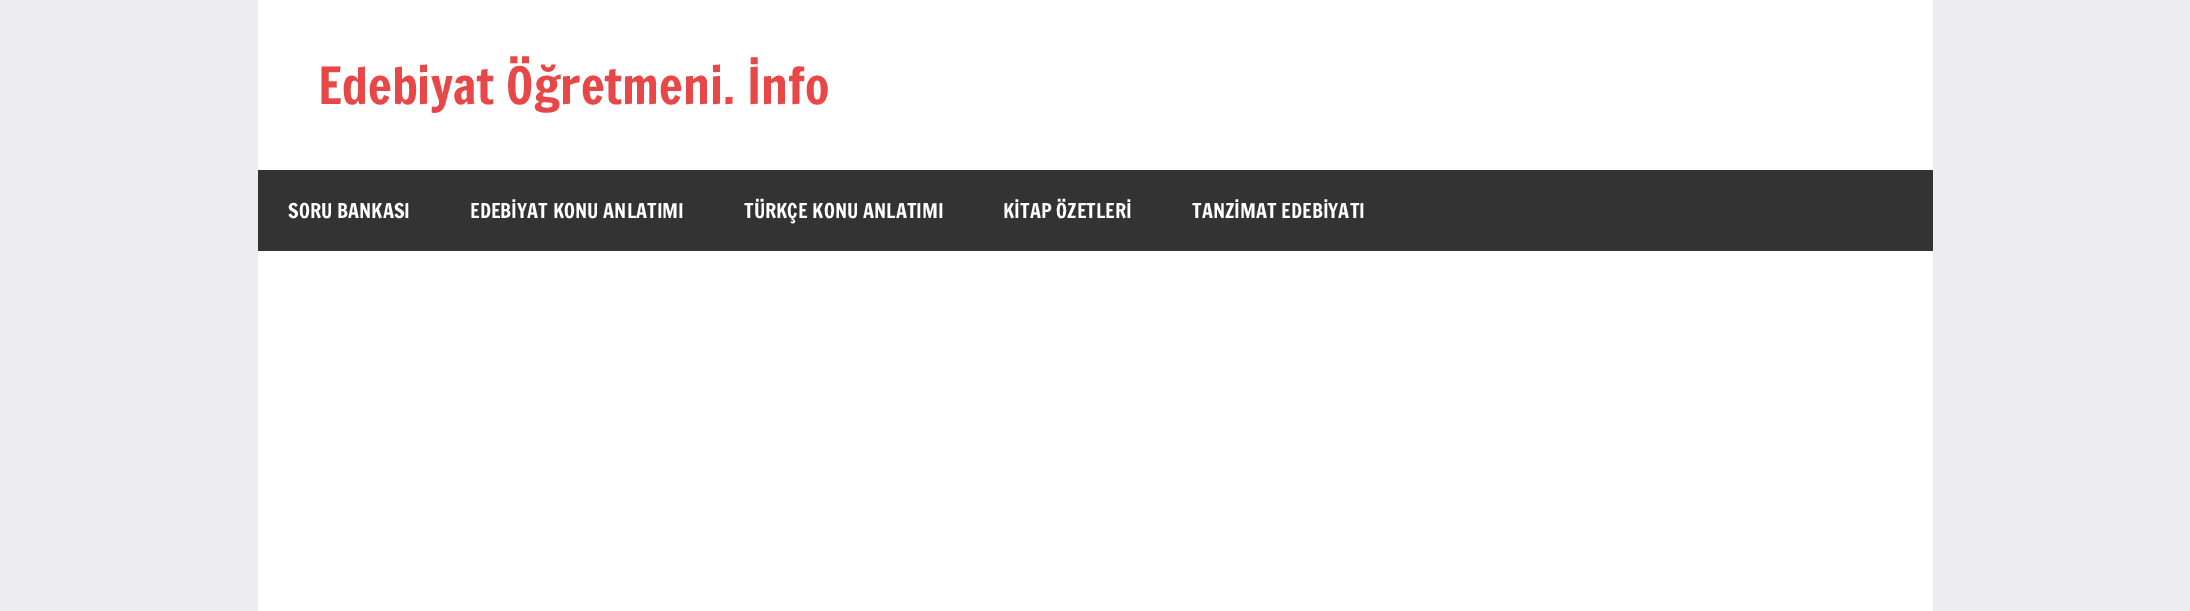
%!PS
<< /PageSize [2190 611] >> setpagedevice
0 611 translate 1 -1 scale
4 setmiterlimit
0.929 0.929 0.937 setrgbcolor
0 0 2190 611 rectfill
1 setgray
258 0 1675 611 rectfill
/FrancoisOne-Regular [50 0 0 -50 0 0] selectfont
0.91 0.278 0.278 setrgbcolor
318 104 moveto (Edebiyat Öğretmeni. İnfo) show
0.2 setgray
258 170 1675 81 rectfill
/FrancoisOne-Regular [20 0 0 -20 0 0] selectfont
1 setgray
288 218 moveto (SORU BANKASI) show
470 218 moveto (EDEBİYAT KONU ANLATIMI) show
744 218 moveto (TÜRKÇE KONU ANLATIMI) show
1003 218 moveto (KİTAP ÖZETLERİ) show
1192 218 moveto (TANZİMAT EDEBİYATI) show
showpage
